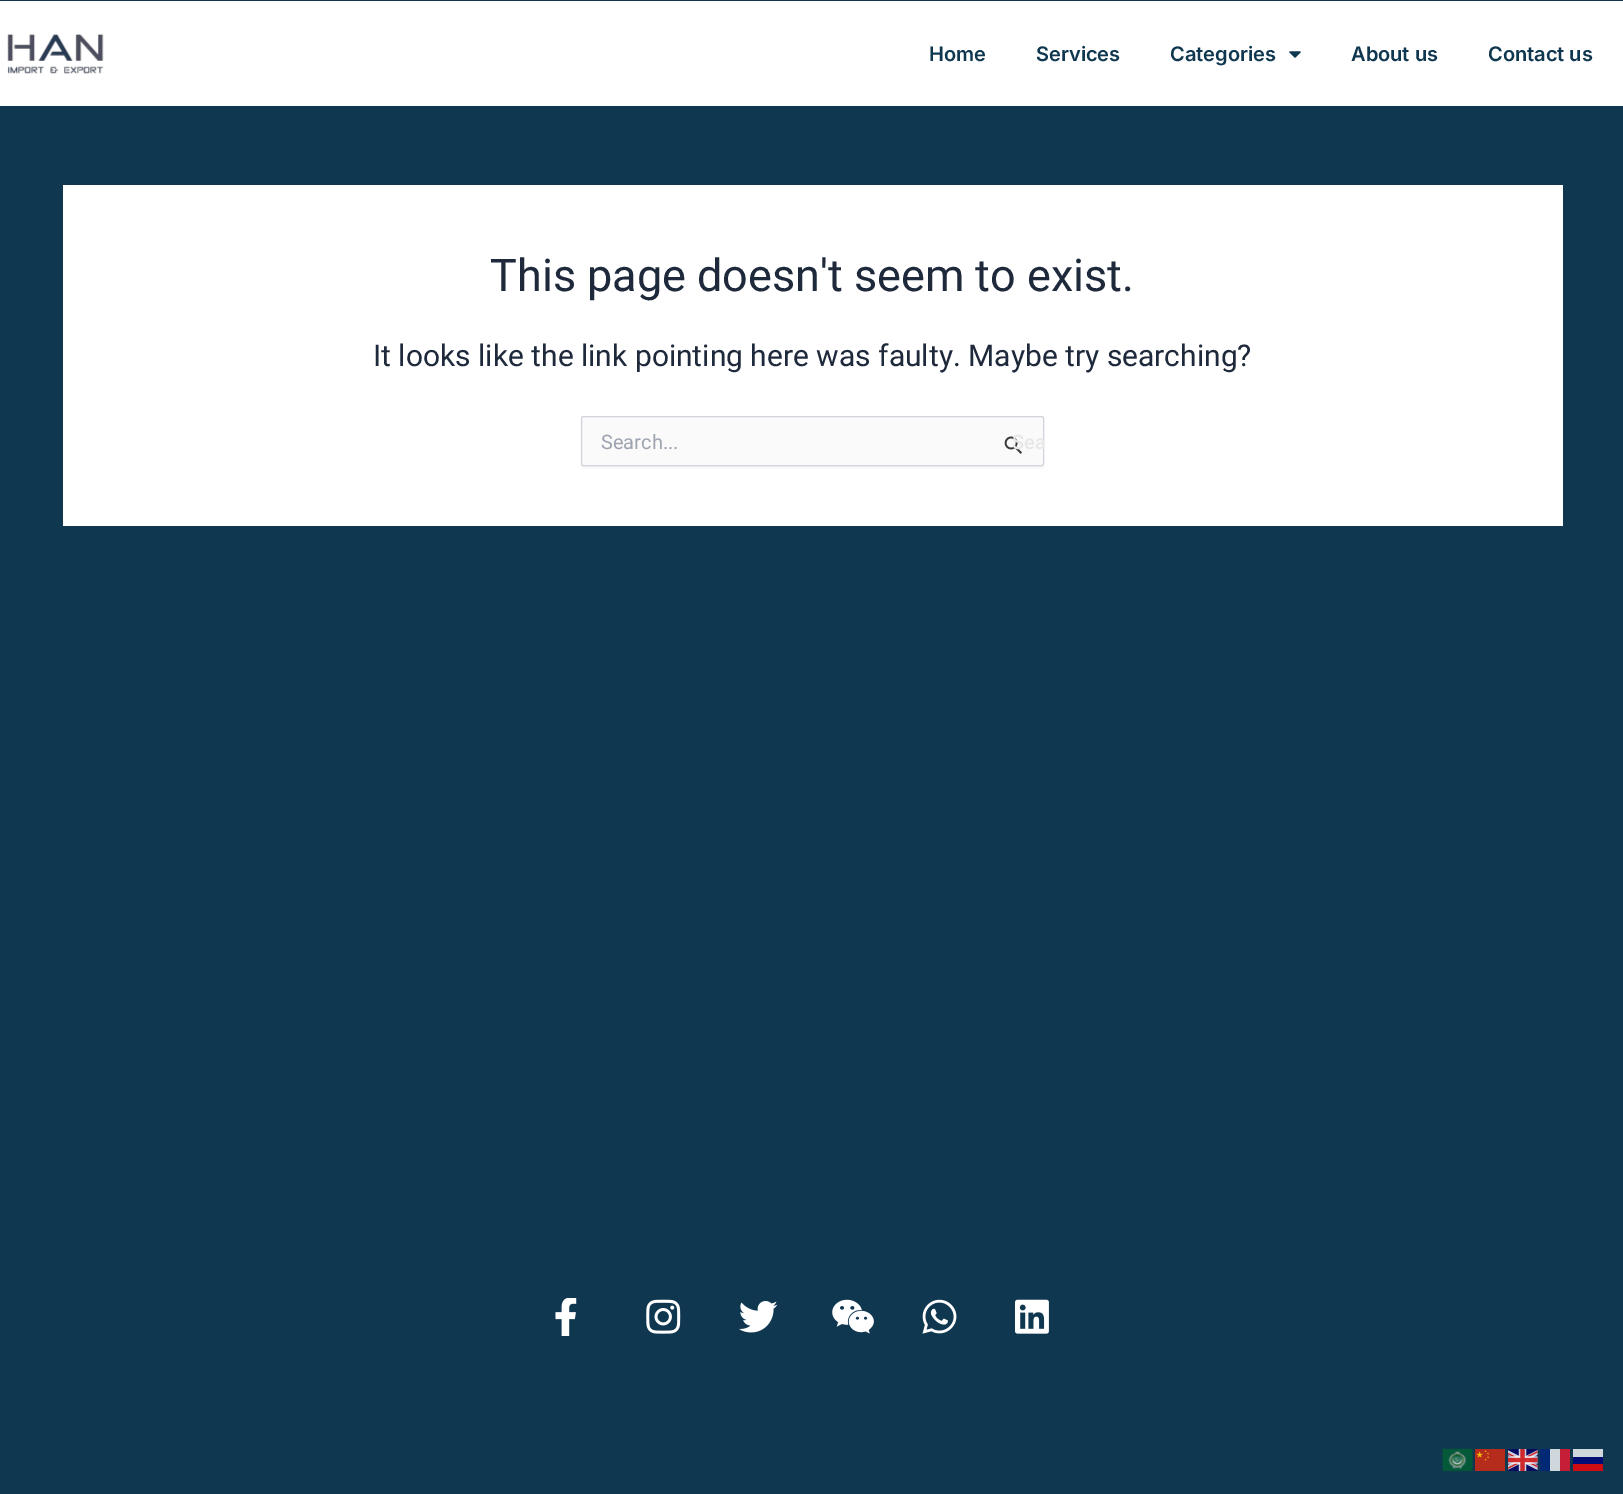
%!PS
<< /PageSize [1623 1494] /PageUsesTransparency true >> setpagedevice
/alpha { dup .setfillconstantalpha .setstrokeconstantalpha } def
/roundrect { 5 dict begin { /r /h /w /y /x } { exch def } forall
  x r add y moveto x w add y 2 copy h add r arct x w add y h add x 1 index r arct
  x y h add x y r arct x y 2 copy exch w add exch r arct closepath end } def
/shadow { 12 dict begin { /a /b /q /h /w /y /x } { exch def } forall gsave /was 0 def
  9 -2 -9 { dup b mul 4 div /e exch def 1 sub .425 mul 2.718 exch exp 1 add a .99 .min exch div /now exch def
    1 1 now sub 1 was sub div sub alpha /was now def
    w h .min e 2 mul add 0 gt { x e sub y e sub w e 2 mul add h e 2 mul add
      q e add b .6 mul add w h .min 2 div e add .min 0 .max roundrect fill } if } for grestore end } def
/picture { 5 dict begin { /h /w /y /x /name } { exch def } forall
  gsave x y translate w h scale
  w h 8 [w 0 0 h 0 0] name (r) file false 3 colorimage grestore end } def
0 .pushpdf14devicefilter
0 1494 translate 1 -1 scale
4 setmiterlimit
0.063 0.216 0.314 setrgbcolor
0 0 1623 1494 rectfill
1 setgray
0 1 1623 105 rectfill
(img1.rgb) 7 33 97 41 picture
/Inter-SemiBold [20 0 0 -20 0 0] selectfont
0.063 0.216 0.314 setrgbcolor
929 61 moveto (Home) show
1036 61 moveto (Services) show
1170 61 moveto (Categories) show
(img2.rgb) 1289 51 12 7 picture
1351 61 moveto (About us) show
1488 61 moveto (Contact us) show
1 setgray
63 185 1500 341 rectfill
/Roboto-Regular [45 0 0 -45 0 0] selectfont
0.118 0.161 0.231 setrgbcolor
490 291 moveto (This page doesn't seem to exist.) show
/Roboto-Regular [30 0 0 -30 0 0] selectfont
373 366 moveto (It looks like the link pointing here was faulty. Maybe try searching?) show
0 setgray
581 418 463 50 2.5 1 0.05 shadow
0.98 setgray
581.5 416.5 462 49 2 roundrect gsave fill grestore
0.82 0.835 0.859 setrgbcolor
stroke
/Roboto-Regular [20 0 0 -20 0 0] selectfont
0.612 0.639 0.686 setrgbcolor
601 449 moveto (Search...) show
(img3.rgb) 1004 436 18 18 picture
gsave
988 416 56 53 2.5 roundrect clip newpath
/Roboto-Medium [20 0 0 -20 0 0] selectfont
0.906 setgray
1012 449 moveto (Sea) show
grestore
(img4.rgb) 555 1298 22 38 picture
(img5.rgb) 646 1299 35 35 picture
(img6.rgb) 739 1301 39 32 picture
(img7.rgb) 832 1299 42 35 picture
(img8.rgb) 922 1299 35 35 picture
(img9.rgb) 1015 1299 34 35 picture
(img10.rgb) 1442 1448 31 24 picture
(img11.rgb) 1475 1449 30 22 picture
(img12.rgb) 1508 1449 30 22 picture
0.012 0.161 0.463 setrgbcolor
1540 1449 10 22 rectfill
0.812 0.843 0.863 setrgbcolor
1550 1449 10 22 rectfill
0.776 0.118 0.212 setrgbcolor
1560 1449 10 22 rectfill
0.812 0.843 0.863 setrgbcolor
1573 1449 30 8 rectfill
0.016 0.047 0.459 setrgbcolor
1573 1457 30 7 rectfill
0.808 0.047 0.067 setrgbcolor
1573 1464 30 7 rectfill
.poppdf14devicefilter showpage
